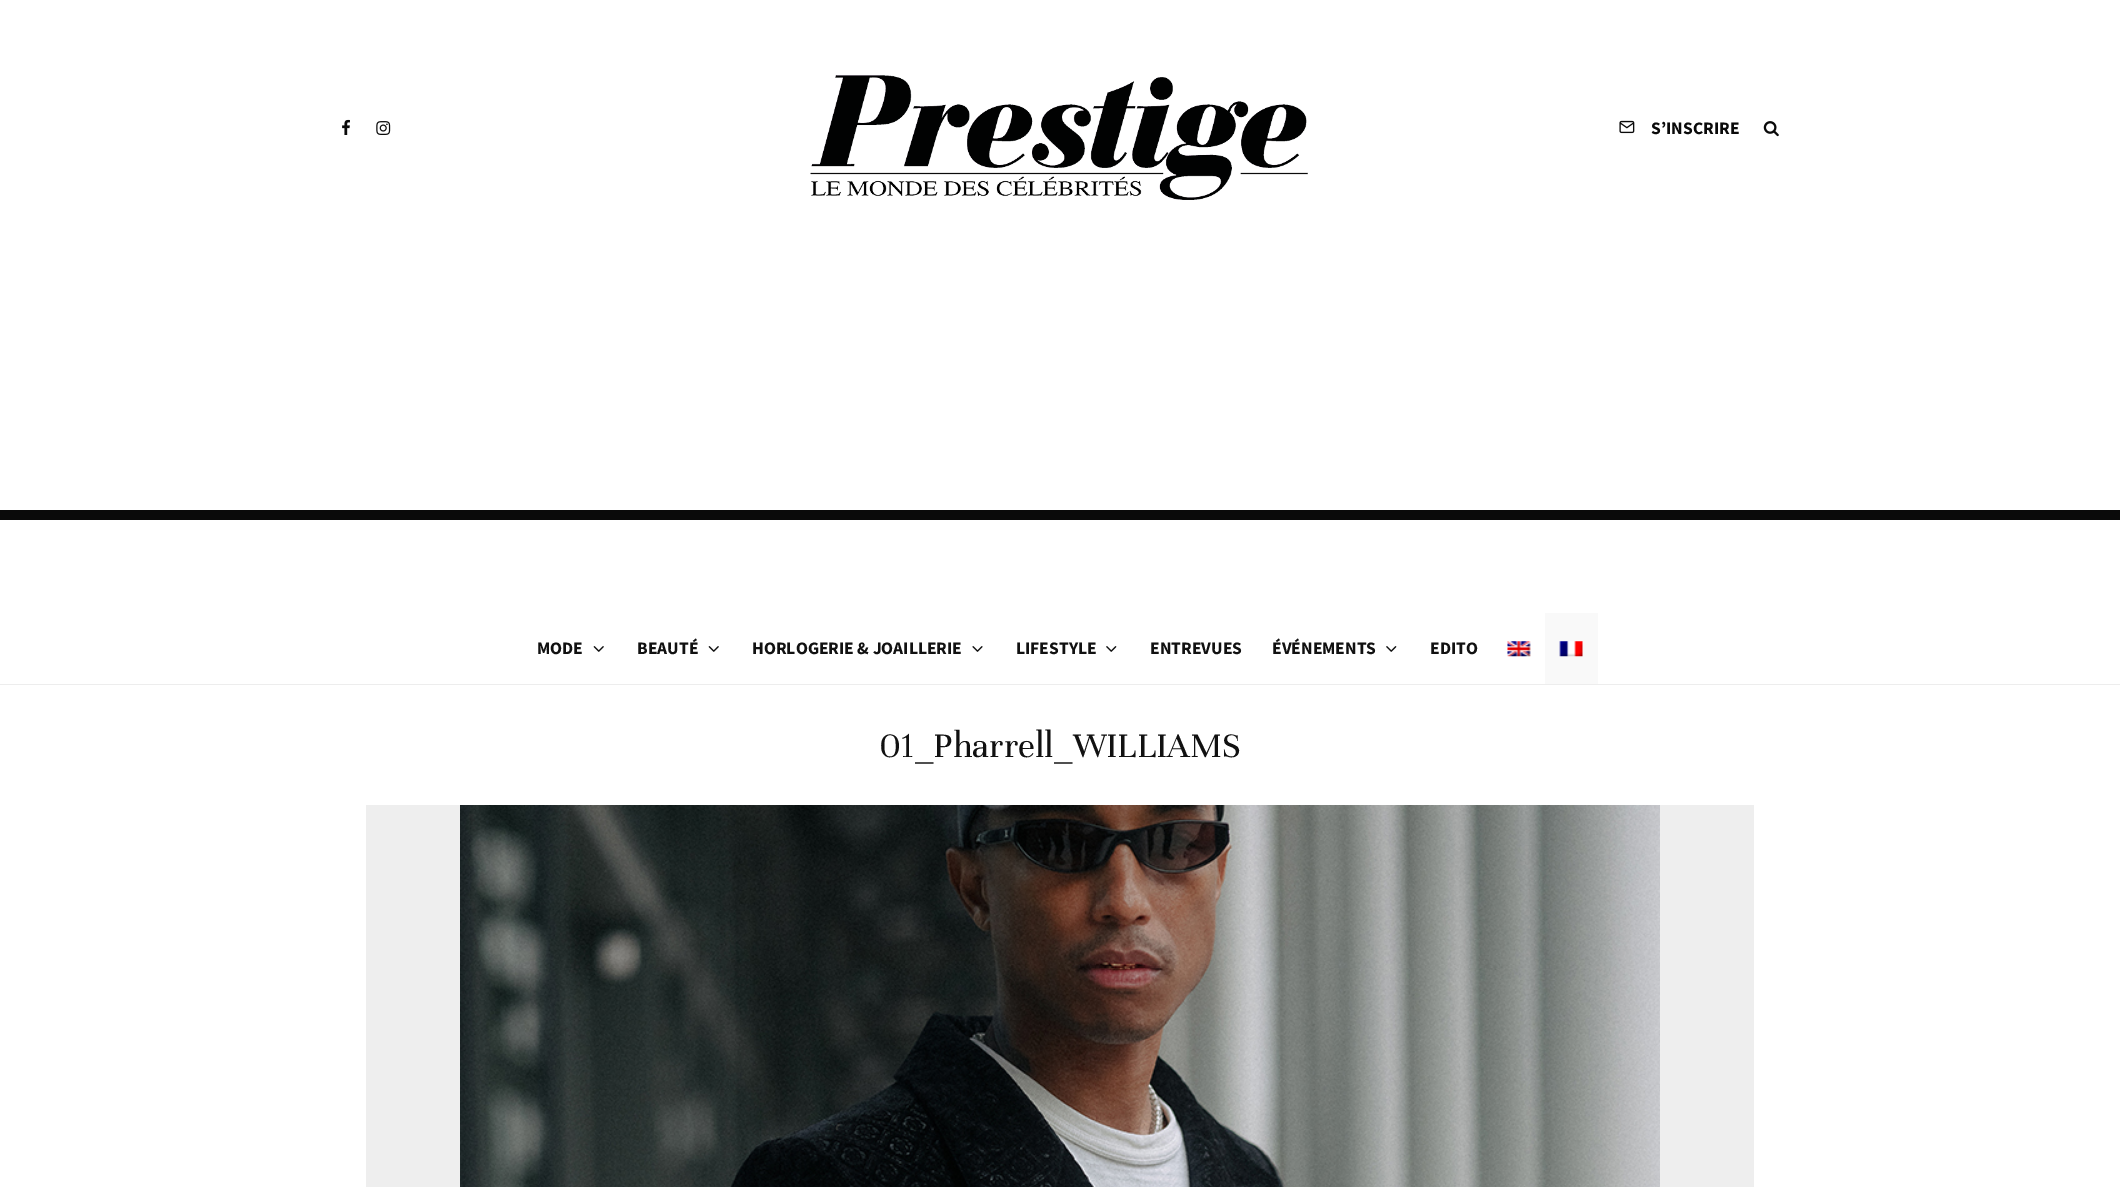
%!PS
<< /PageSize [2120 1187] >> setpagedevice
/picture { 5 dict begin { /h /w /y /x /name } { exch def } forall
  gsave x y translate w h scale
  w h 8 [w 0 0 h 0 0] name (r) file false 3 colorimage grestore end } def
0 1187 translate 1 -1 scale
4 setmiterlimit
1 setgray
0 0 2120 1187 rectfill
(img1.rgb) 342 119 8 16 picture
(img2.rgb) 376 121 15 14 picture
(img3.rgb) 810 75 498 125 picture
(img4.rgb) 1619 120 16 14 picture
/SourceSansPro-Bold [17.5 0 0 -17.5 0 0] selectfont
0.039 setgray
1651 134 moveto (S’INSCRIRE) show
(img5.rgb) 1763 121 16 16 picture
0 510 2120 10 rectfill
0.929 setgray
0 684 2120 1 rectfill
0.067 setgray
537 654 moveto (MODE) show
(img6.rgb) 593 646 11 6 picture
637 654 moveto (BEAUTÉ) show
(img6.rgb) 708 646 11 6 picture
752 654 moveto (HORLOGERIE & JOAILLERIE) show
(img7.rgb) 972 646 11 6 picture
1016 654 moveto (LIFESTYLE) show
(img8.rgb) 1106 646 11 6 picture
1150 654 moveto (ENTREVUES) show
1272 654 moveto (ÉVÉNEMENTS) show
(img8.rgb) 1386 646 11 6 picture
1430 654 moveto (EDITO) show
(img9.rgb) 1507 641 24 16 picture
0.976 setgray
1545 613 53 71 rectfill
(img10.rgb) 1559 641 24 16 picture
/Unna-Regular [37.5 0 0 -37.5 0 0] selectfont
0.067 setgray
880 757 moveto (01_Pharrell_WILLIAMS) show
0.933 setgray
366 805 1388 382 rectfill
(img11.rgb) 460 805 1200 382 picture
showpage
